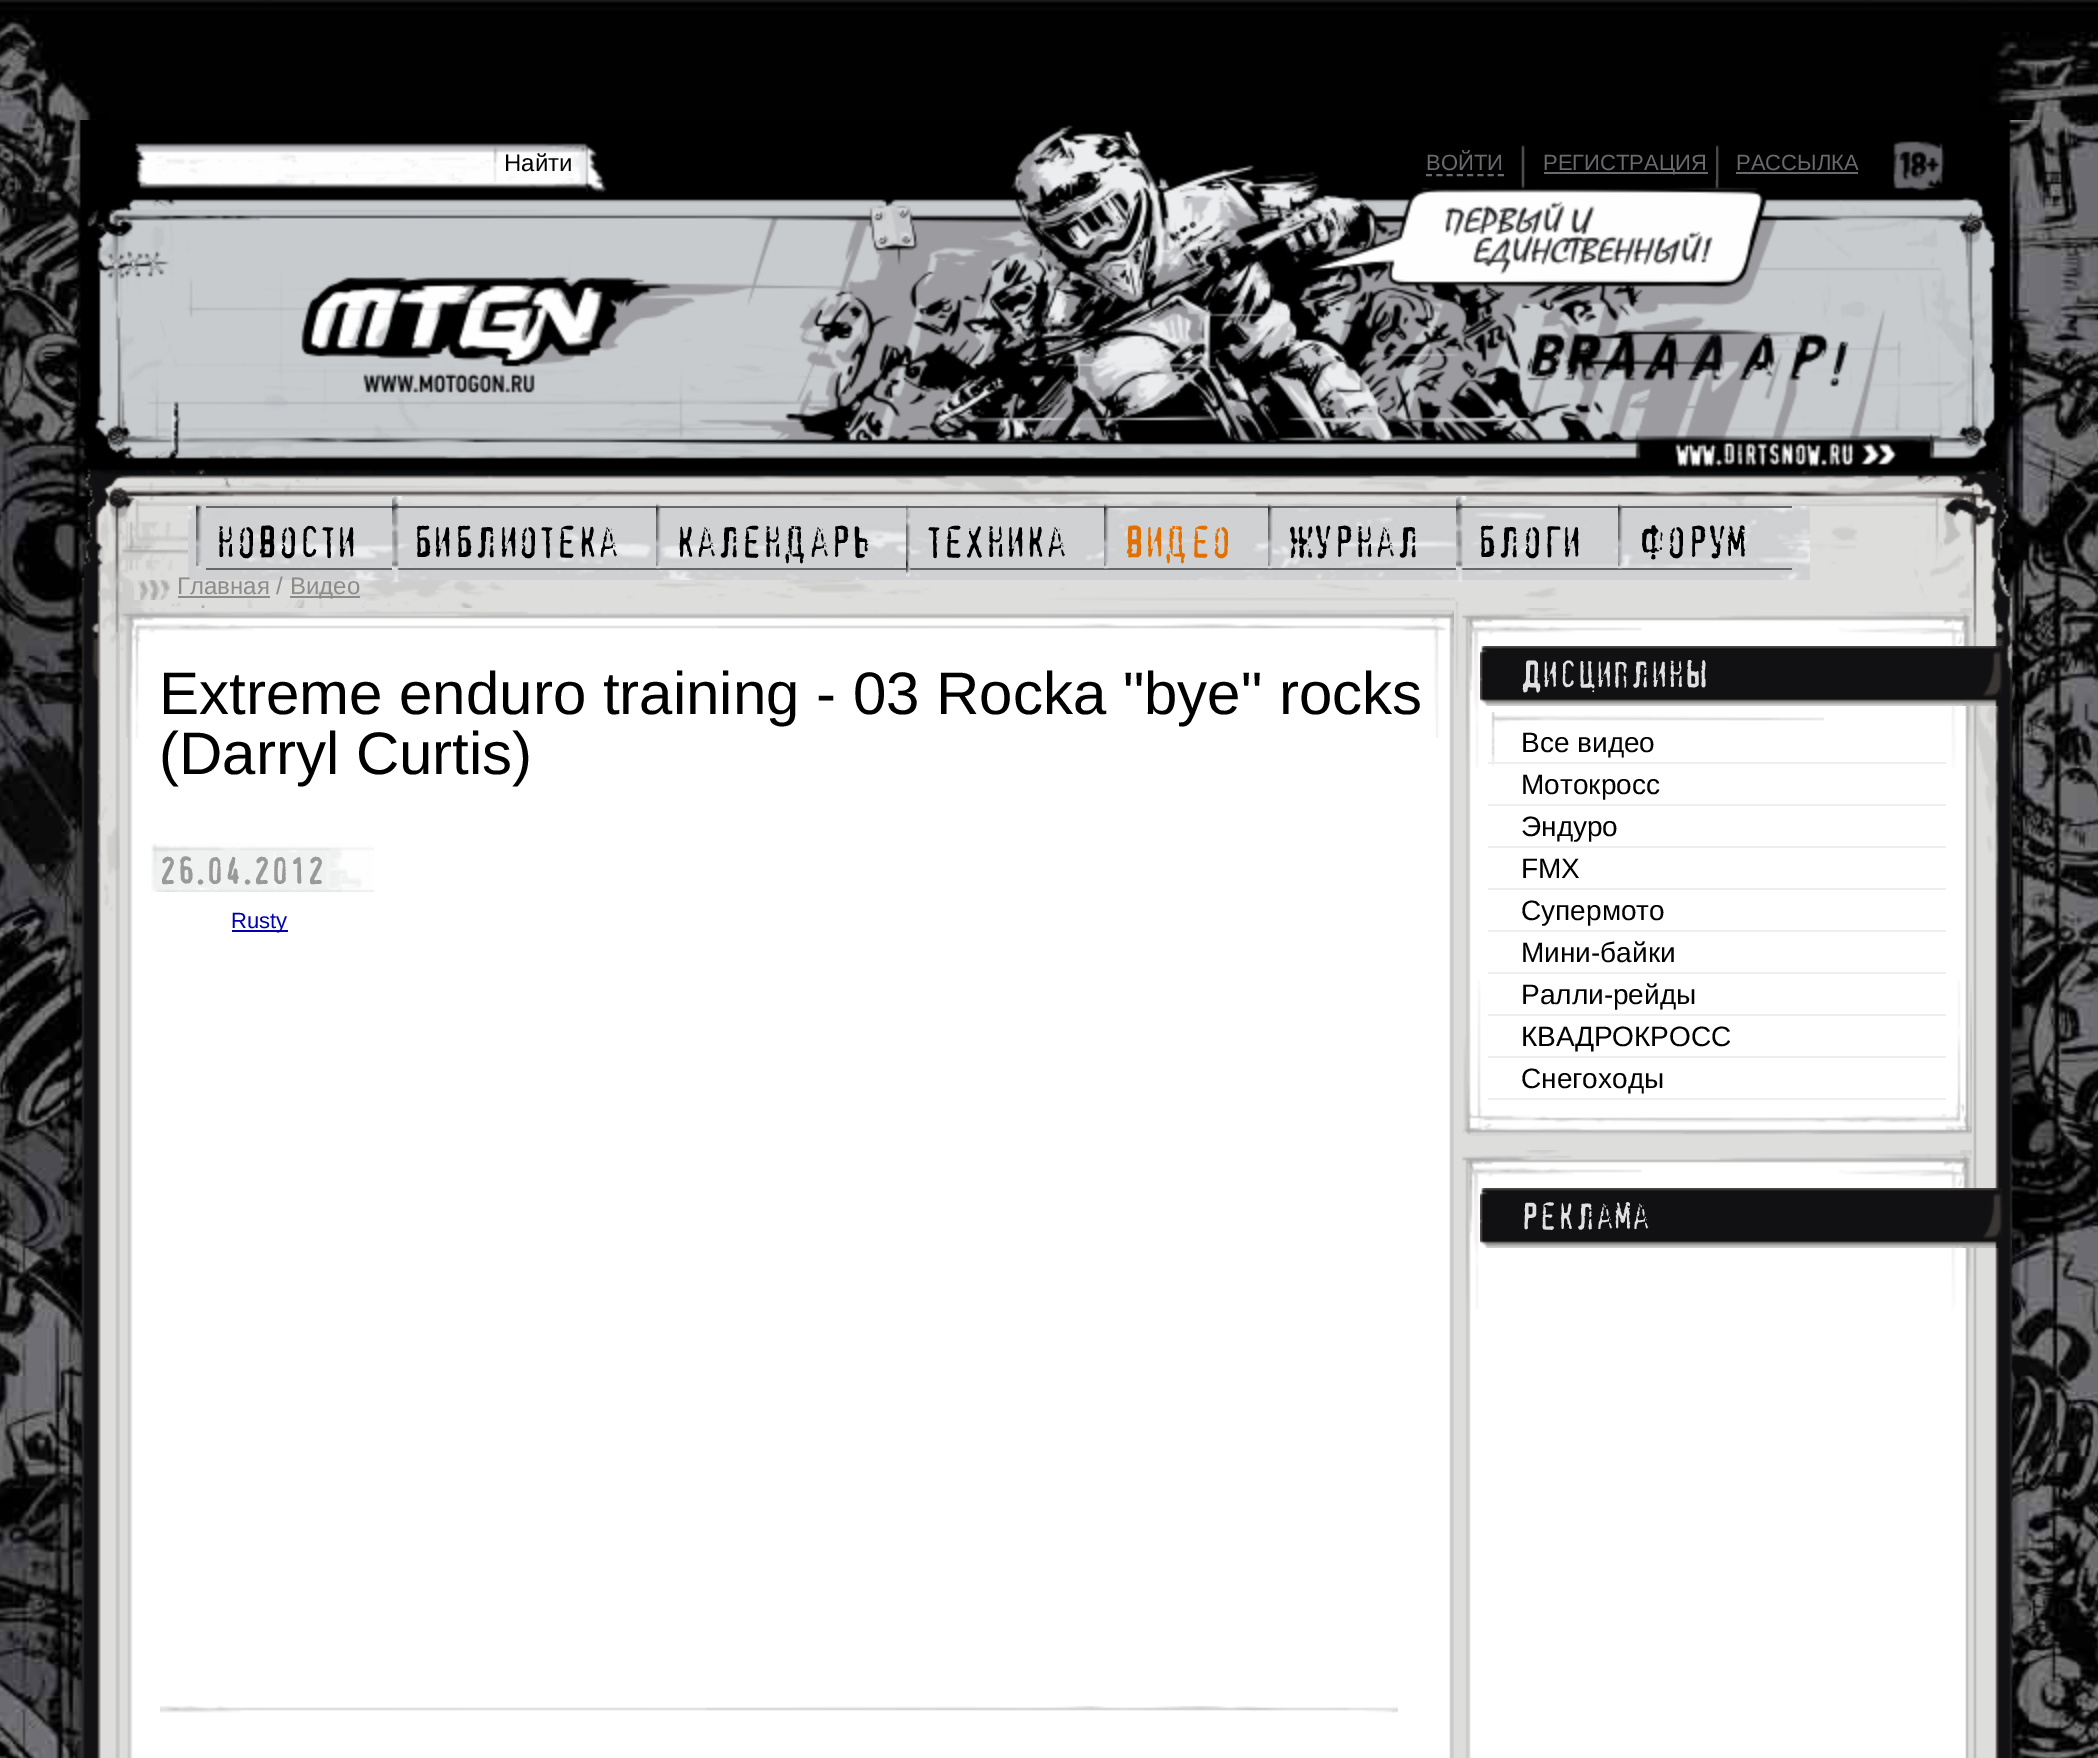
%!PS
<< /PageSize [2098 1758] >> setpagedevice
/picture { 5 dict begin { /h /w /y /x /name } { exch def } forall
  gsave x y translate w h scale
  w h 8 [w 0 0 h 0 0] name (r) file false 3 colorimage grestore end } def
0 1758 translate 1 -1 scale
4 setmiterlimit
1 setgray
0 0 2098 1758 rectfill
(img1.rgb) 0 0 2098 1758 picture
(img2.rgb) 60 120 1980 792 picture
/LiberationSans-Regular [24 0 0 -24 0 0] selectfont
0 setgray
504 171 moveto (Найти) show
/LiberationSans-Regular [22 0 0 -22 0 0] selectfont
0.416 0.412 0.431 setrgbcolor
1426 170 moveto (ВОЙТИ) show
2 setlinewidth
[6 4.28] 0 setdash
newpath 1426 175 moveto 1504 175 lineto stroke
1544 172 164 2 rectfill
1543 170 moveto (РЕГИСТРАЦИЯ) show
0 setgray
1715 142 1 38 rectfill
0.416 0.412 0.431 setrgbcolor
1736 170 moveto (РАССЫЛКА) show
1736 172 122 2 rectfill
(img3.rgb) 188 506 1622 74 picture
0.4 0.404 0.412 setrgbcolor
206 506 1586 2 rectfill
206 568 1586 2 rectfill
(img4.rgb) 196 503 6 66 picture
/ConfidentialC-Regular [42 0 0 -42 0 0] selectfont
0 setgray
215 558 moveto (новости) show
(img5.rgb) 392 496 10 87 picture
412 558 moveto (библиотека) show
(img6.rgb) 656 503 5 66 picture
675 558 moveto (календарь) show
(img7.rgb) 906 505 5 72 picture
926 558 moveto (техника) show
(img8.rgb) 1104 503 5 66 picture
0.886 0.439 0 setrgbcolor
1124 558 moveto (видео) show
(img9.rgb) 1268 503 5 66 picture
0 setgray
1287 558 moveto (журнал) show
(img10.rgb) 1456 496 10 86 picture
1476 558 moveto (блоги) show
(img11.rgb) 1618 503 5 66 picture
1638 558 moveto (форум) show
(img12.rgb) 81 912 1932 846 picture
(img13.rgb) 134 580 37 20 picture
/LiberationSans-Regular [24 0 0 -24 0 0] selectfont
0.545 setgray
177 594 moveto (Главная /) show
178 596 92 2 rectfill
290 596 70 2 rectfill
290 594 moveto (Видео) show
(img14.rgb) 120 738 1334 1020 picture
(img15.rgb) 120 608 1334 130 picture
/LiberationSans-Regular [60 0 0 -60 0 0] selectfont
0 setgray
159 714 moveto (Extreme enduro training - 03 Rocka "bye" rocks) show
159 774 moveto (\(Darryl Curtis\)) show
(img16.rgb) 151 843 223 49 picture
/ConfidentialC-Regular [36 0 0 -36 0 0] selectfont
0.6 setgray
159 884 moveto (26.04.2012) show
0 0 0.69 setrgbcolor
232 930 56 2 rectfill
/LiberationSans-Regular [22 0 0 -22 0 0] selectfont
231 928 moveto (Rusty) show
(img17.rgb) 160 1706 1238 7 picture
(img18.rgb) 1462 768 507 212 picture
(img19.rgb) 1462 608 510 160 picture
(img20.rgb) 1462 980 510 156 picture
(img21.rgb) 1480 646 532 60 picture
/ConfidentialC-Regular [36 0 0 -36 0 0] selectfont
0.878 setgray
1521 688 moveto (Дисциплины) show
(img22.rgb) 1491 712 333 54 picture
0.933 setgray
1488 762 458 2 rectfill
/LiberationSans-Regular [28 0 0 -28 0 0] selectfont
0 setgray
1521 752 moveto (Все видео) show
0.933 setgray
1488 804 458 2 rectfill
0 setgray
1521 794 moveto (Мотокросс) show
0.933 setgray
1488 846 458 2 rectfill
0 setgray
1521 836 moveto (Эндуро) show
0.933 setgray
1488 888 458 2 rectfill
0 setgray
1521 878 moveto (FMX) show
0.933 setgray
1488 930 458 2 rectfill
0 setgray
1521 920 moveto (Супермото) show
0.933 setgray
1488 972 458 2 rectfill
0 setgray
1521 962 moveto (Мини-байки) show
0.933 setgray
1488 1014 458 2 rectfill
0 setgray
1521 1004 moveto (Ралли-рейды) show
0.933 setgray
1488 1056 458 2 rectfill
0 setgray
1521 1046 moveto (КВАДРОКРОСС) show
0.933 setgray
1488 1098 458 2 rectfill
0 setgray
1521 1088 moveto (Снегоходы) show
(img23.rgb) 1465 1310 504 448 picture
(img19.rgb) 1462 1150 510 160 picture
(img24.rgb) 1480 1188 532 60 picture
/ConfidentialC-Regular [36 0 0 -36 0 0] selectfont
0.878 setgray
1521 1230 moveto (Реклама) show
showpage
